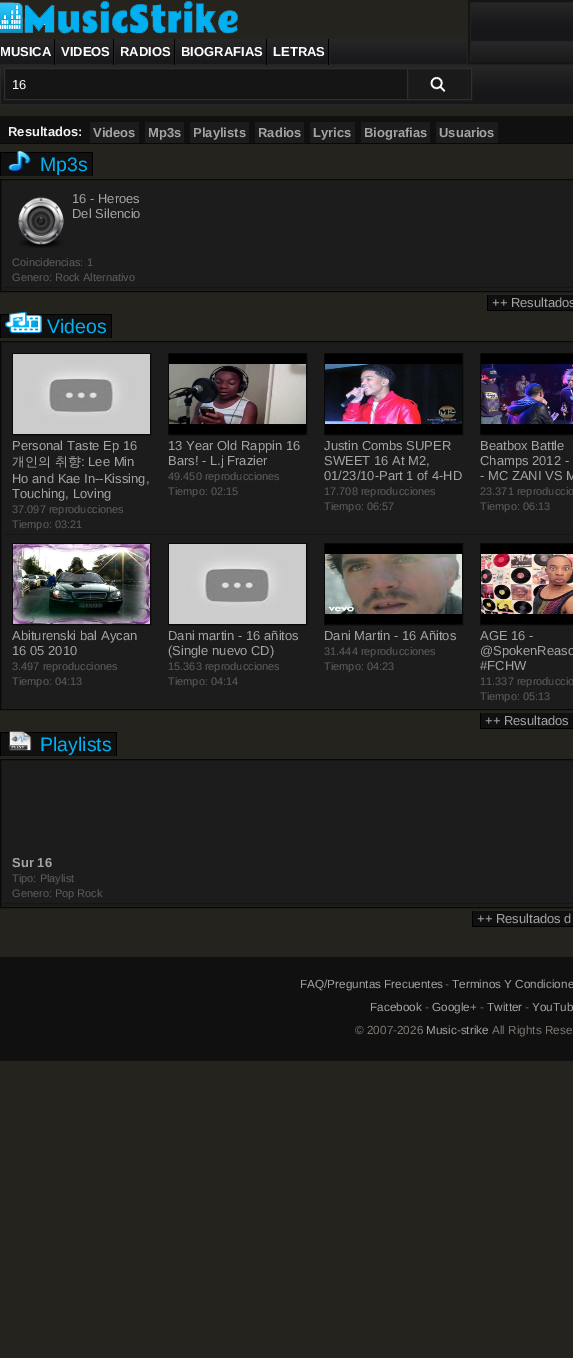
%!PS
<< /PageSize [573 1358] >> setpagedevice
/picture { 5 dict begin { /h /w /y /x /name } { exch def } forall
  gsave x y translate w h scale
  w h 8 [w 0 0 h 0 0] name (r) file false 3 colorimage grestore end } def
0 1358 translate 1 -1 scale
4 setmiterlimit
0.141 0.137 0.118 setrgbcolor
0 0 573 1358 rectfill
(img1.rgb) 0 1 238 33 picture
(img2.rgb) 470 2 103 60 picture
0.082 setgray
2 setlinewidth
469 1 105 62 rectstroke
(img3.rgb) 0 39 467 25 picture
(img4.rgb) 54 39 2 26 picture
/LiberationSans-Bold [13 0 0 -13 0 0] selectfont
1 setgray
0 56 moveto (MUSICA) show
(img4.rgb) 113 39 2 26 picture
61 56 moveto (VIDEOS) show
(img4.rgb) 174 39 2 26 picture
120 56 moveto (RADIOS) show
(img4.rgb) 266 39 2 26 picture
181 56 moveto (BIOGRAFIAS) show
(img4.rgb) 328 39 2 26 picture
273 56 moveto (LETRAS) show
(img5.rgb) 0 65 573 41 picture
0.082 setgray
5 69 402 30 rectfill
0.18 setgray
1 setlinewidth
4.5 68.5 404 31 rectstroke
/LiberationSans-Regular [13 0 0 -13 0 0] selectfont
1 setgray
12 89 moveto (16) show
0.102 setgray
408 69 63 30 rectfill
(img6.rgb) 430 76 16 16 picture
0.18 setgray
407.5 68.5 64 31 rectstroke
0.063 setgray
0 116 573 27 rectfill
0.035 setgray
0 143 573 1 rectfill
/LiberationSans-Bold [13 0 0 -13 0 0] selectfont
0.949 setgray
8 136 moveto (Resultados:) show
0.11 setgray
90 122 49 21 rectfill
0.643 setgray
93 137 moveto (Videos) show
0.11 setgray
145 122 39 21 rectfill
0.643 setgray
148 137 moveto (Mp3s) show
0.11 setgray
190 122 59 21 rectfill
0.643 setgray
193 137 moveto (Playlists) show
0.11 setgray
255 122 49 21 rectfill
0.643 setgray
258 137 moveto (Radios) show
0.11 setgray
310 122 45 21 rectfill
0.643 setgray
313 137 moveto (Lyrics) show
0.11 setgray
361 122 69 21 rectfill
0.643 setgray
364 137 moveto (Biografias) show
0.11 setgray
436 122 62 21 rectfill
0.643 setgray
439 137 moveto (Usuarios) show
0.063 setgray
1 153 91 23 rectfill
0 setgray
0 152 93 1 rectfill
92 152 1 24 rectfill
0 152 1 24 rectfill
(img7.rgb) 8 151 23 20 picture
/LiberationSans-Regular [19.5 0 0 -19.5 0 0] selectfont
0 0.69 0.941 setrgbcolor
40 171 moveto (Mp3s) show
0.11 setgray
newpath 0.5 179.5 moveto 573.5 179.5 lineto 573.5 291.5 lineto 0.5 291.5 lineto closepath gsave fill grestore
0.035 setgray
stroke
0.082 setgray
4 287 569 1 rectfill
(img8.rgb) 18 197 46 51 picture
/LiberationSans-Regular [13 0 0 -13 0 0] selectfont
0.643 setgray
72 203 moveto (16 - Heroes) show
72 218 moveto (Del Silencio) show
/LiberationSans-Regular [11 0 0 -11 0 0] selectfont
0.369 setgray
12 266 moveto (Coincidencias: 1) show
12 281 moveto (Genero: Rock Alternativo) show
0.063 setgray
488 295 85 15 rectfill
0 setgray
487 310 86 1 rectfill
487 295 1 16 rectfill
/LiberationSans-Regular [13 0 0 -13 0 0] selectfont
0.643 setgray
492 307 moveto (++ Resultados) show
0.063 setgray
1 315 110 23 rectfill
0 setgray
0 314 112 1 rectfill
111 314 1 24 rectfill
0 314 1 24 rectfill
(img9.rgb) 5 311 37 22 picture
/LiberationSans-Regular [19.5 0 0 -19.5 0 0] selectfont
0 0.69 0.941 setrgbcolor
47 333 moveto (Videos) show
0.11 setgray
newpath 0.5 341.5 moveto 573.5 341.5 lineto 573.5 709.5 lineto 0.5 709.5 lineto closepath gsave fill grestore
0.035 setgray
stroke
0.082 setgray
4 534 569 1 rectfill
0.035 setgray
12.5 353.5 138 81 rectstroke
(img10.rgb) 13 354 137 80 picture
/LiberationSans-Regular [13 0 0 -13 0 0] selectfont
0.643 setgray
12 450 moveto (Personal Taste Ep 16) show
/WenQuanYiZenHei-Medium [13 0 0 -13 0 0] selectfont
12 466 moveto (개인의 취향) show
/LiberationSans-Regular [13 0 0 -13 0 0] selectfont
81 466 moveto (: Lee Min) show
12 483 moveto (Ho and Kae In--Kissing,) show
12 498 moveto (Touching, Loving) show
/LiberationSans-Regular [11 0 0 -11 0 0] selectfont
0.369 setgray
12 513 moveto (37.097 reproducciones) show
12 528 moveto (Tiempo: 03:21) show
0.035 setgray
168.5 353.5 138 81 rectstroke
(img11.rgb) 169 354 137 80 picture
/LiberationSans-Regular [13 0 0 -13 0 0] selectfont
0.643 setgray
168 450 moveto (13 Year Old Rappin 16) show
168 465 moveto (Bars! - L.j Frazier) show
/LiberationSans-Regular [11 0 0 -11 0 0] selectfont
0.369 setgray
168 480 moveto (49.450 reproducciones) show
168 495 moveto (Tiempo: 02:15) show
0.035 setgray
324.5 353.5 138 81 rectstroke
(img12.rgb) 325 354 137 80 picture
/LiberationSans-Regular [13 0 0 -13 0 0] selectfont
0.643 setgray
324 450 moveto (Justin Combs SUPER) show
324 465 moveto (SWEET 16 At M2,) show
324 480 moveto (01/23/10-Part 1 of 4-HD) show
/LiberationSans-Regular [11 0 0 -11 0 0] selectfont
0.369 setgray
324 495 moveto (17.708 reproducciones) show
324 510 moveto (Tiempo: 06:57) show
0.035 setgray
480.5 353.5 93 81 rectstroke
(img13.rgb) 481 354 92 80 picture
/LiberationSans-Regular [13 0 0 -13 0 0] selectfont
0.643 setgray
480 450 moveto (Beatbox Battle) show
480 465 moveto (Champs 2012 -) show
480 480 moveto (- MC ZANI VS M) show
/LiberationSans-Regular [11 0 0 -11 0 0] selectfont
0.369 setgray
480 495 moveto (23.371 reproduccio) show
480 510 moveto (Tiempo: 06:13) show
0.035 setgray
12.5 543.5 138 81 rectstroke
(img14.rgb) 13 544 137 80 picture
/LiberationSans-Regular [13 0 0 -13 0 0] selectfont
0.643 setgray
12 640 moveto (Abiturenski bal Aycan) show
12 655 moveto (16 05 2010) show
/LiberationSans-Regular [11 0 0 -11 0 0] selectfont
0.369 setgray
12 670 moveto (3.497 reproducciones) show
12 685 moveto (Tiempo: 04:13) show
0.035 setgray
168.5 543.5 138 81 rectstroke
(img10.rgb) 169 544 137 80 picture
/LiberationSans-Regular [13 0 0 -13 0 0] selectfont
0.643 setgray
168 640 moveto (Dani martin - 16 añitos) show
168 655 moveto (\(Single nuevo CD\)) show
/LiberationSans-Regular [11 0 0 -11 0 0] selectfont
0.369 setgray
168 670 moveto (15.363 reproducciones) show
168 685 moveto (Tiempo: 04:14) show
0.035 setgray
324.5 543.5 138 81 rectstroke
(img15.rgb) 325 544 137 80 picture
/LiberationSans-Regular [13 0 0 -13 0 0] selectfont
0.643 setgray
324 640 moveto (Dani Martin - 16 Añitos) show
/LiberationSans-Regular [11 0 0 -11 0 0] selectfont
0.369 setgray
324 655 moveto (31.444 reproducciones) show
324 670 moveto (Tiempo: 04:23) show
0.035 setgray
480.5 543.5 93 81 rectstroke
(img16.rgb) 481 544 92 80 picture
/LiberationSans-Regular [13 0 0 -13 0 0] selectfont
0.643 setgray
480 640 moveto (AGE 16 -) show
480 655 moveto (@SpokenReaso) show
480 670 moveto (#FCHW) show
/LiberationSans-Regular [11 0 0 -11 0 0] selectfont
0.369 setgray
480 685 moveto (11.337 reproduccio) show
480 700 moveto (Tiempo: 05:13) show
0.063 setgray
481 713 92 15 rectfill
0 setgray
480 728 93 1 rectfill
480 713 1 16 rectfill
/LiberationSans-Regular [13 0 0 -13 0 0] selectfont
0.643 setgray
485 725 moveto (++ Resultados) show
0.063 setgray
1 733 115 23 rectfill
0 setgray
0 732 117 1 rectfill
116 732 1 24 rectfill
0 732 1 24 rectfill
(img17.rgb) 8 731 24 20 picture
/LiberationSans-Regular [19.5 0 0 -19.5 0 0] selectfont
0 0.69 0.941 setrgbcolor
40 751 moveto (Playlists) show
0.11 setgray
newpath 0.5 759.5 moveto 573.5 759.5 lineto 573.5 907.5 lineto 0.5 907.5 lineto closepath gsave fill grestore
0.035 setgray
stroke
0.082 setgray
4 903 569 1 rectfill
/LiberationSans-Bold [13 0 0 -13 0 0] selectfont
0.643 setgray
12 867 moveto (Sur 16) show
/LiberationSans-Regular [11 0 0 -11 0 0] selectfont
0.369 setgray
12 882 moveto (Tipo: Playlist) show
12 897 moveto (Genero: Pop Rock) show
0.063 setgray
473 911 100 15 rectfill
0 setgray
472 926 101 1 rectfill
472 911 1 16 rectfill
/LiberationSans-Regular [13 0 0 -13 0 0] selectfont
0.643 setgray
477 923 moveto (++ Resultados d) show
0.063 setgray
0 957 573 104 rectfill
/LiberationSans-Regular [11.75 0 0 -11.75 0 0] selectfont
0.643 setgray
300 988 moveto (FAQ/Preguntas Frecuentes) show
0.498 0.467 0.447 setrgbcolor
445 988 moveto (-) show
0.643 setgray
452 988 moveto (Terminos Y Condicione) show
370 1011 moveto (Facebook) show
0.498 0.467 0.447 setrgbcolor
425 1011 moveto (-) show
0.643 setgray
432 1011 moveto (Google+) show
0.498 0.467 0.447 setrgbcolor
480 1011 moveto (-) show
0.643 setgray
487 1011 moveto (Twitter) show
0.498 0.467 0.447 setrgbcolor
525 1011 moveto (-) show
0.643 setgray
532 1011 moveto (YouTub) show
0.498 0.467 0.447 setrgbcolor
355 1034 moveto (© 2007-2026) show
0.643 setgray
426 1034 moveto (Music-strike) show
0.498 0.467 0.447 setrgbcolor
492 1034 moveto (All Rights Rese) show
showpage
